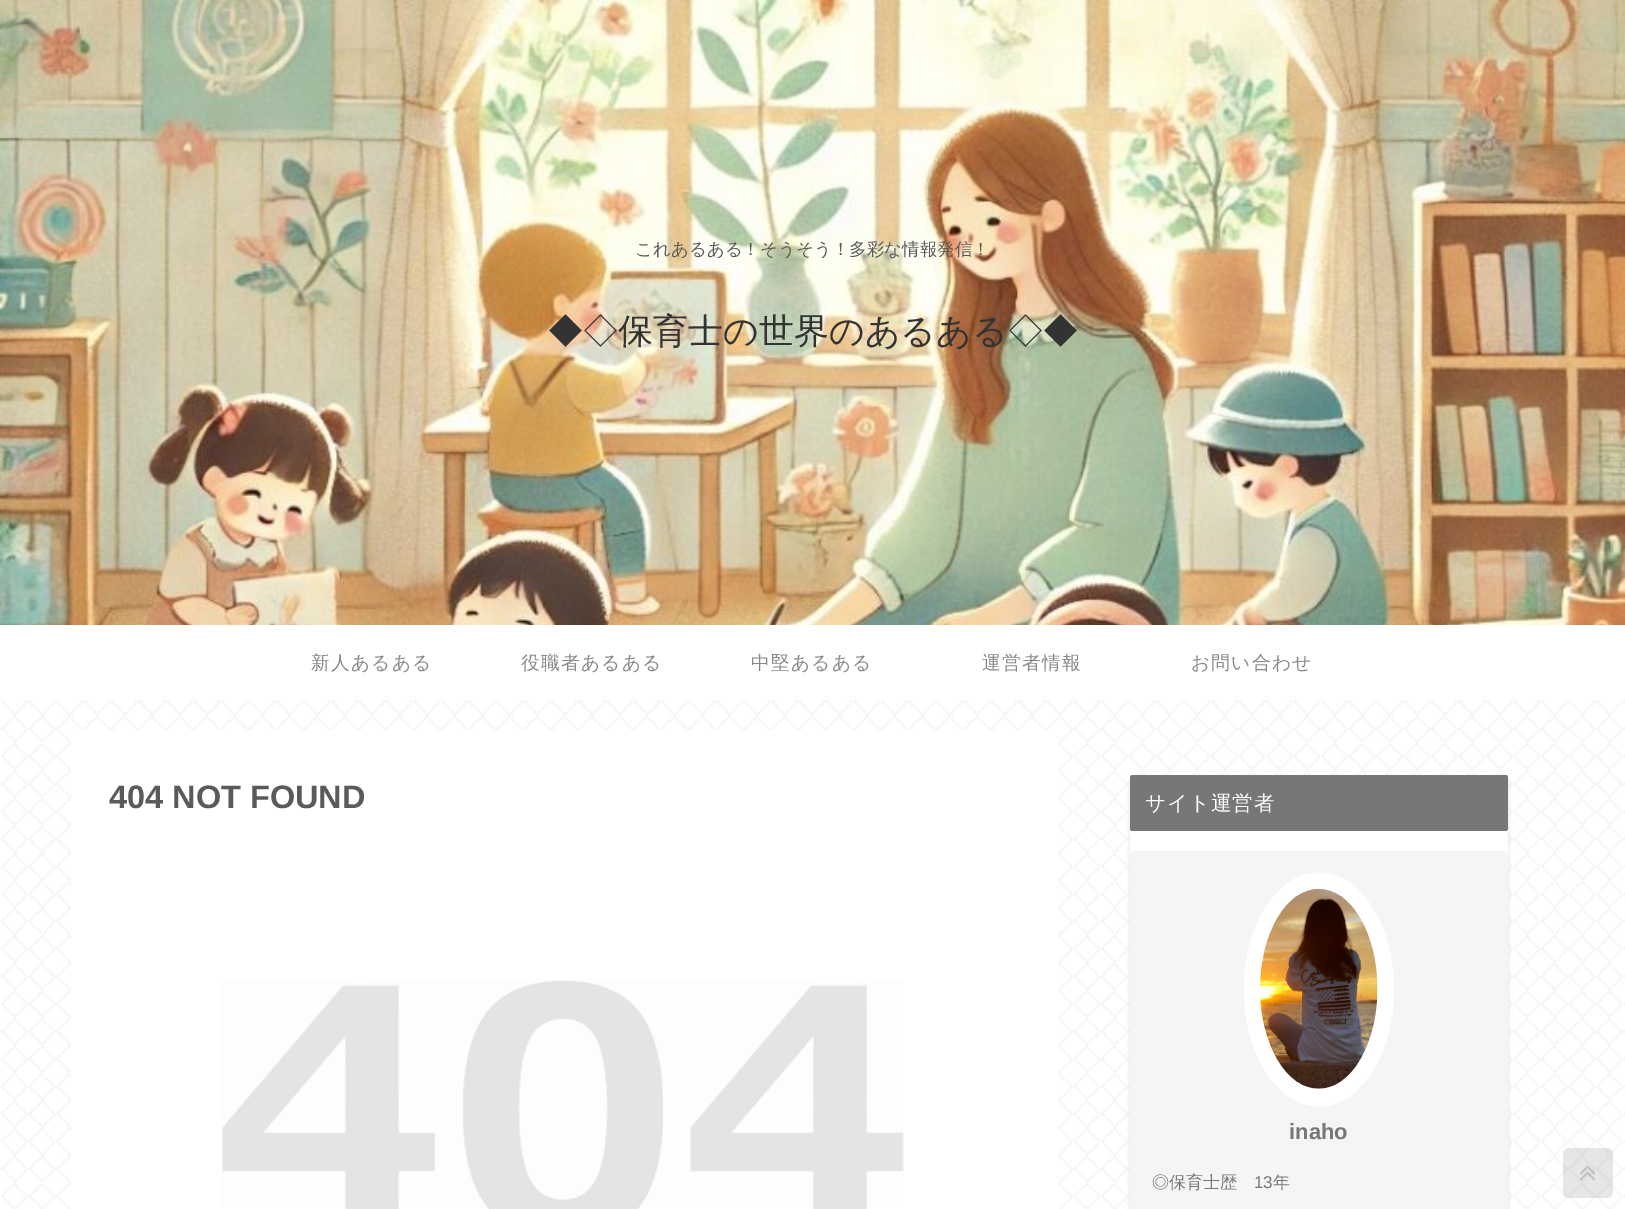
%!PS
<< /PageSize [1625 1209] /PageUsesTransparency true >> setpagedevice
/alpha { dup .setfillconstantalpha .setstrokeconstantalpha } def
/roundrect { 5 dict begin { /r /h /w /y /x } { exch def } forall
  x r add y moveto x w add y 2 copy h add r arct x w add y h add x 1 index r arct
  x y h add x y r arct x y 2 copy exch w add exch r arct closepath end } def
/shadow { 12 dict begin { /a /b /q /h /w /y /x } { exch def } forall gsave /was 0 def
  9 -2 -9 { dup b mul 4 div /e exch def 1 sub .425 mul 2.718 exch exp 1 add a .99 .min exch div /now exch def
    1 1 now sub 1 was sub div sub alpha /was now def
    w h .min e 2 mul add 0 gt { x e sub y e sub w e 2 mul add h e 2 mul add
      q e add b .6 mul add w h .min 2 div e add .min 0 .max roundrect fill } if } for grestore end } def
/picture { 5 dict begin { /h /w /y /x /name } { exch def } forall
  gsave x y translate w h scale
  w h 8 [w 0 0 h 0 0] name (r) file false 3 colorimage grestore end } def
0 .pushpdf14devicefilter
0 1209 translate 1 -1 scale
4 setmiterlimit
1 setgray
0 0 1625 1209 rectfill
(img1.rgb) 0 700 1625 509 picture
(img2.rgb) 0 0 1625 625 picture
/WenQuanYiZenHei-Medium [17.5 0 0 -17.5 0 0] selectfont
0.353 setgray
635 255 moveto (これあるある！そうそう！多彩な情報発信！) show
/WenQuanYiZenHei-Medium [35 0 0 -35 0 0] selectfont
0.2 setgray
548 343 moveto (◆◇保育士の世界のあるある◇◆) show
/WenQuanYiZenHei-Medium [18.75 0 0 -18.75 0 0] selectfont
0.533 setgray
311 669 moveto 1.25 0 (新人あるある) ashow
521 669 moveto 1.25 0 (役職者あるある) ashow
751 669 moveto 1.25 0 (中堅あるある) ashow
982 669 moveto 1.25 0 (運営者情報) ashow
1191 669 moveto 1.25 0 (お問い合わせ) ashow
1 setgray
71 730 988 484 5 roundrect fill
/LiberationSans-Bold [32.5 0 0 -32.5 0 0] selectfont
0.353 setgray
109 808 moveto (404 NOT FOUND) show
(img3.rgb) 221 979 683 230 picture
0 setgray
1130 779 378 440 4 2 0.12 shadow
1 setgray
1130 775 378 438 4 roundrect fill
0.467 setgray
1130 775 378 56 2.5 roundrect fill
/WenQuanYiZenHei-Medium [20.5 0 0 -20.5 0 0] selectfont
1 setgray
1145 810 moveto 1 0 (サイト運営者) ashow
0.961 setgray
1130 851 378 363 5 roundrect fill
1 setgray
newpath 1319 872.5 moveto 1360.5 872.5 1394 925 1394 989.5 curveto 1394 1054 1360.5 1106.5 1319 1106.5 curveto 1277.5 1106.5 1244 1054 1244 989.5 curveto 1244 925 1277.5 872.5 1319 872.5 curveto closepath fill
(img4.rgb) 1260 888 118 201 picture
/LiberationSans-Bold [22 0 0 -22 0 0] selectfont
0.467 setgray
1289 1139 moveto (inaho) show
/WenQuanYiZenHei-Medium [17 0 0 -17 0 0] selectfont
1152 1188 moveto (◎保育士歴) show
/LiberationSans-Regular [17 0 0 -17 0 0] selectfont
1254 1188 moveto (13) show
/WenQuanYiZenHei-Medium [17 0 0 -17 0 0] selectfont
1273 1188 moveto (年) show
0.21 alpha
0.529 setgray
1563 1148 50 50 6 roundrect fill
1 alpha
(img5.rgb) 1580 1165 15 16 picture
.poppdf14devicefilter showpage
